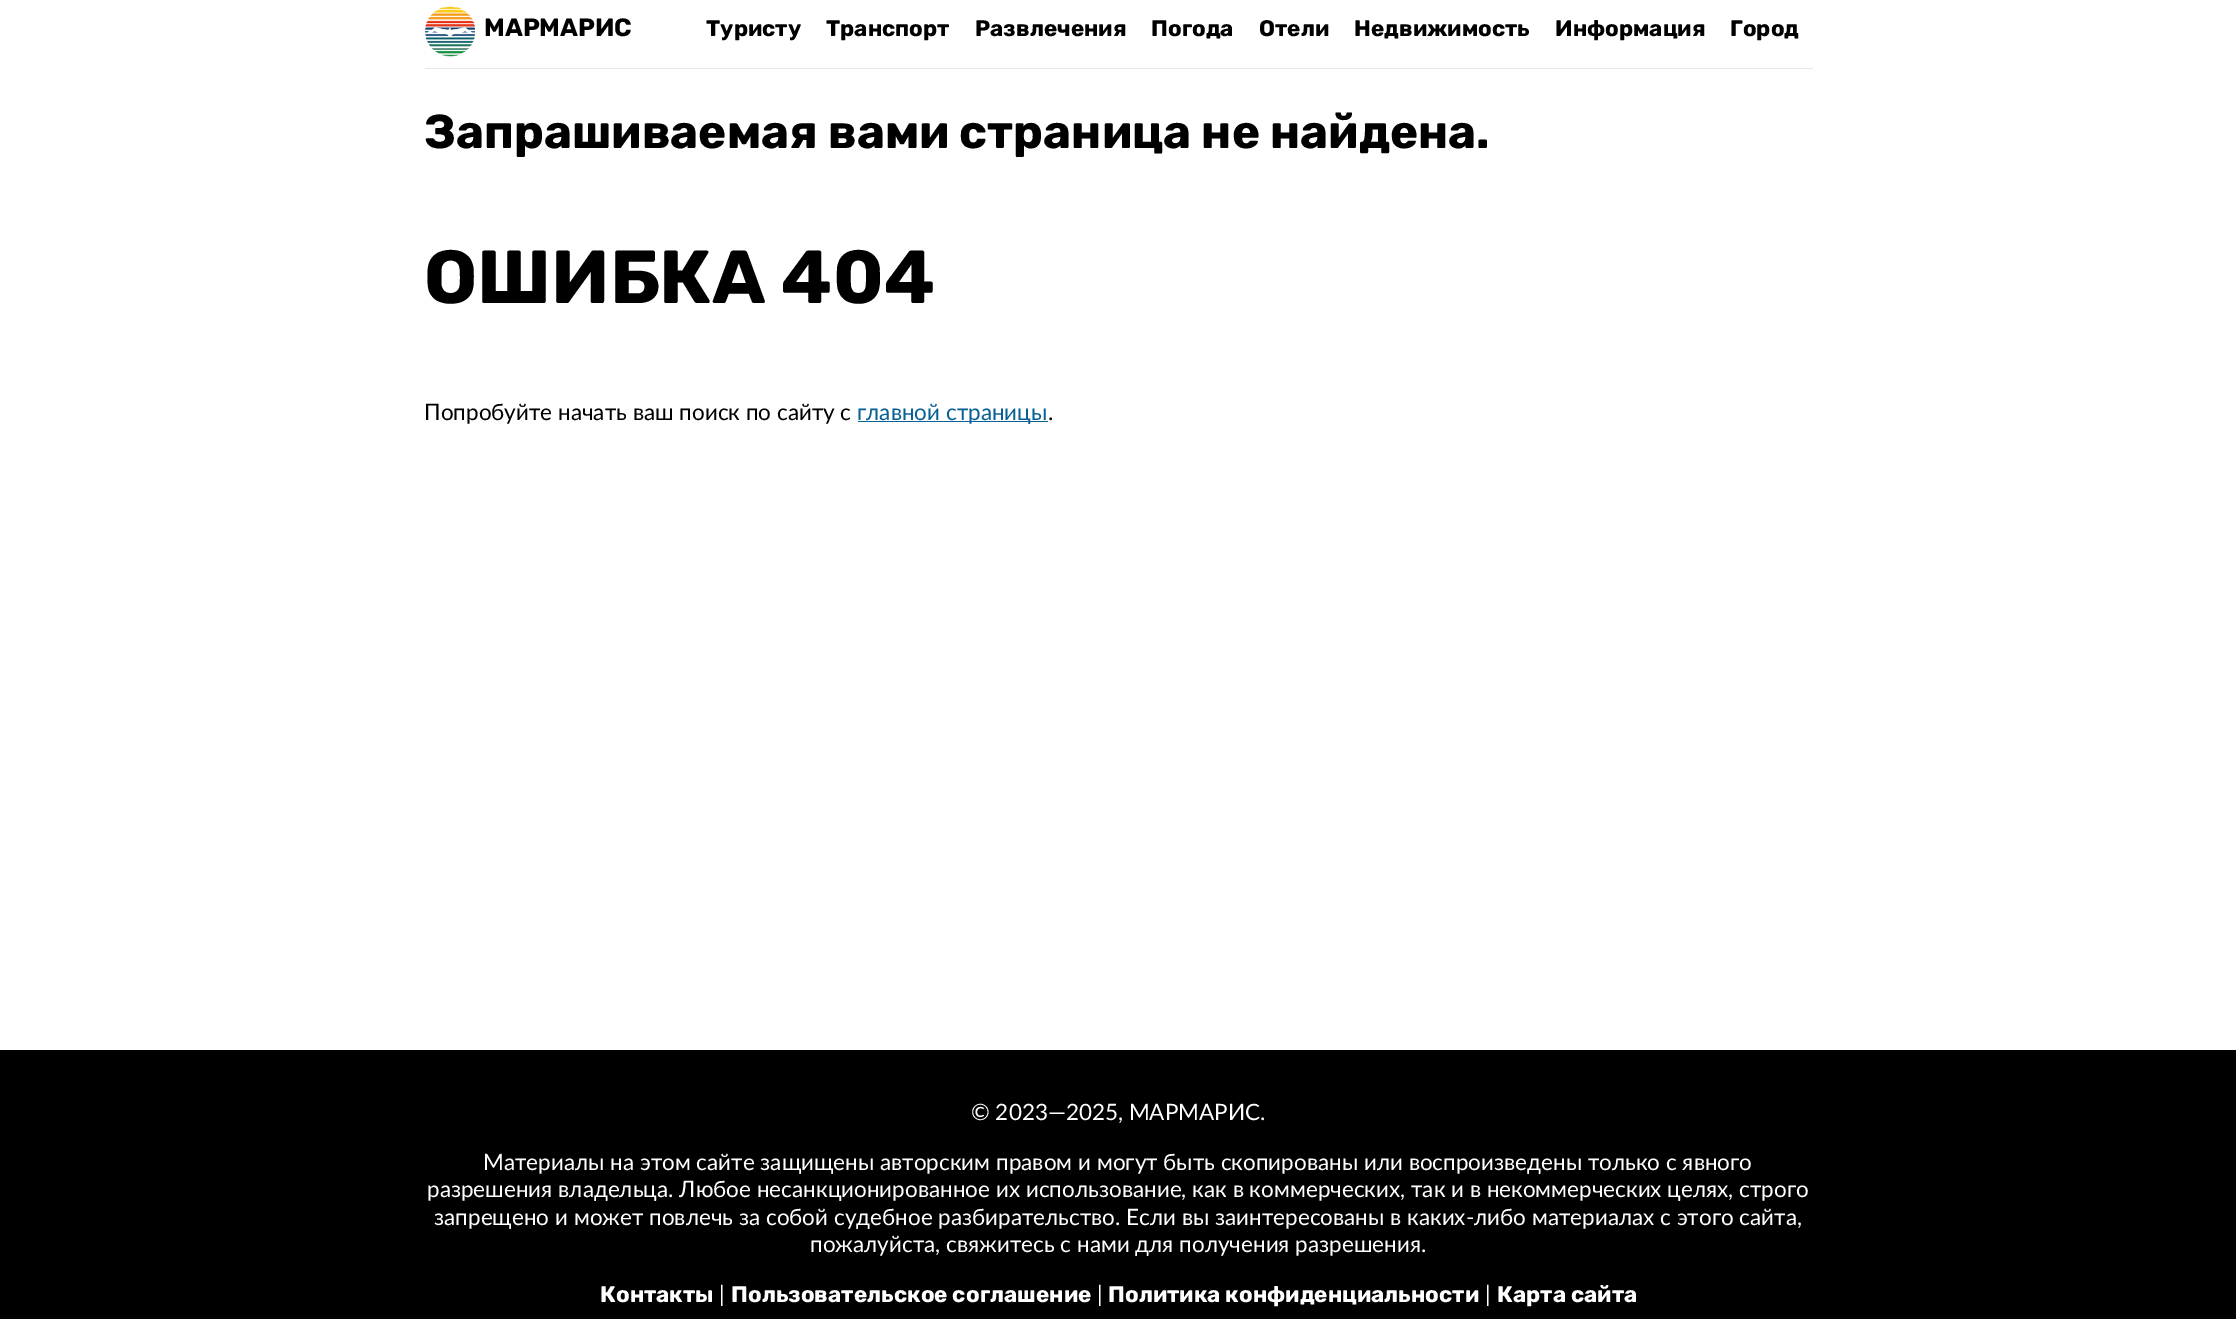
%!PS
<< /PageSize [2236 1319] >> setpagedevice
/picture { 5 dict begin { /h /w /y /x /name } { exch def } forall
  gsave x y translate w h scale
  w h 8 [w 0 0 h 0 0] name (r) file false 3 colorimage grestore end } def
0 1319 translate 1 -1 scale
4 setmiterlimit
1 setgray
0 0 2236 1319 rectfill
0.906 setgray
425 68 1388 1 rectfill
(img1.rgb) 425 6 50 51 picture
/Rubik-Bold [25 0 0 -25 0 0] selectfont
0 setgray
484 36 moveto (МАРМАРИС) show
/Rubik-Bold [22.5 0 0 -22.5 0 0] selectfont
706 36 moveto (Туристу) show
826 36 moveto (Транспорт) show
975 36 moveto (Развлечения) show
1151 36 moveto (Погода) show
1259 36 moveto (Отели) show
1354 36 moveto (Недвижимость) show
1555 36 moveto (Информация) show
1730 36 moveto (Город) show
/Rubik-Bold [47.5 0 0 -47.5 0 0] selectfont
424 148 moveto (Запрашиваемая вами страница не найдена.) show
/Rubik-Bold [75 0 0 -75 0 0] selectfont
424 303 moveto (ОШИБКА 404) show
/Lato-Regular [22.5 0 0 -22.5 0 0] selectfont
424 420 moveto (Попробуйте начать ваш поиск по сайту с) show
0.027 0.38 0.584 setrgbcolor
858 421 190 1 rectfill
857 420 moveto (главной страницы) show
0 setgray
1048 420 moveto (.) show
0 1050 2236 269 rectfill
1 setgray
971 1120 moveto (© 2023—2025, МАРМАРИС.) show
483 1170 moveto (Материалы на этом сайте защищены авторским правом и могут быть скопированы или воспроизведены только с явного) show
427 1197 moveto (разрешения владельца. Любое несанкционированное их использование, как в коммерческих, так и в некоммерческих целях, строго) show
434 1225 moveto (запрещено и может повлечь за собой судебное разбирательство. Если вы заинтересованы в каких-либо материалах с этого сайта,) show
810 1252 moveto (пожалуйста, свяжитесь с нами для получения разрешения.) show
/Rubik-Bold [22.5 0 0 -22.5 0 0] selectfont
600 1302 moveto (Контакты) show
/Lato-Regular [22.5 0 0 -22.5 0 0] selectfont
719 1302 moveto (|) show
/Rubik-Bold [22.5 0 0 -22.5 0 0] selectfont
731 1302 moveto (Пользовательское соглашение) show
/Lato-Regular [22.5 0 0 -22.5 0 0] selectfont
1097 1302 moveto (|) show
/Rubik-Bold [22.5 0 0 -22.5 0 0] selectfont
1108 1302 moveto (Политика конфиденциальности) show
/Lato-Regular [22.5 0 0 -22.5 0 0] selectfont
1485 1302 moveto (|) show
/Rubik-Bold [22.5 0 0 -22.5 0 0] selectfont
1497 1302 moveto (Карта сайта) show
showpage
